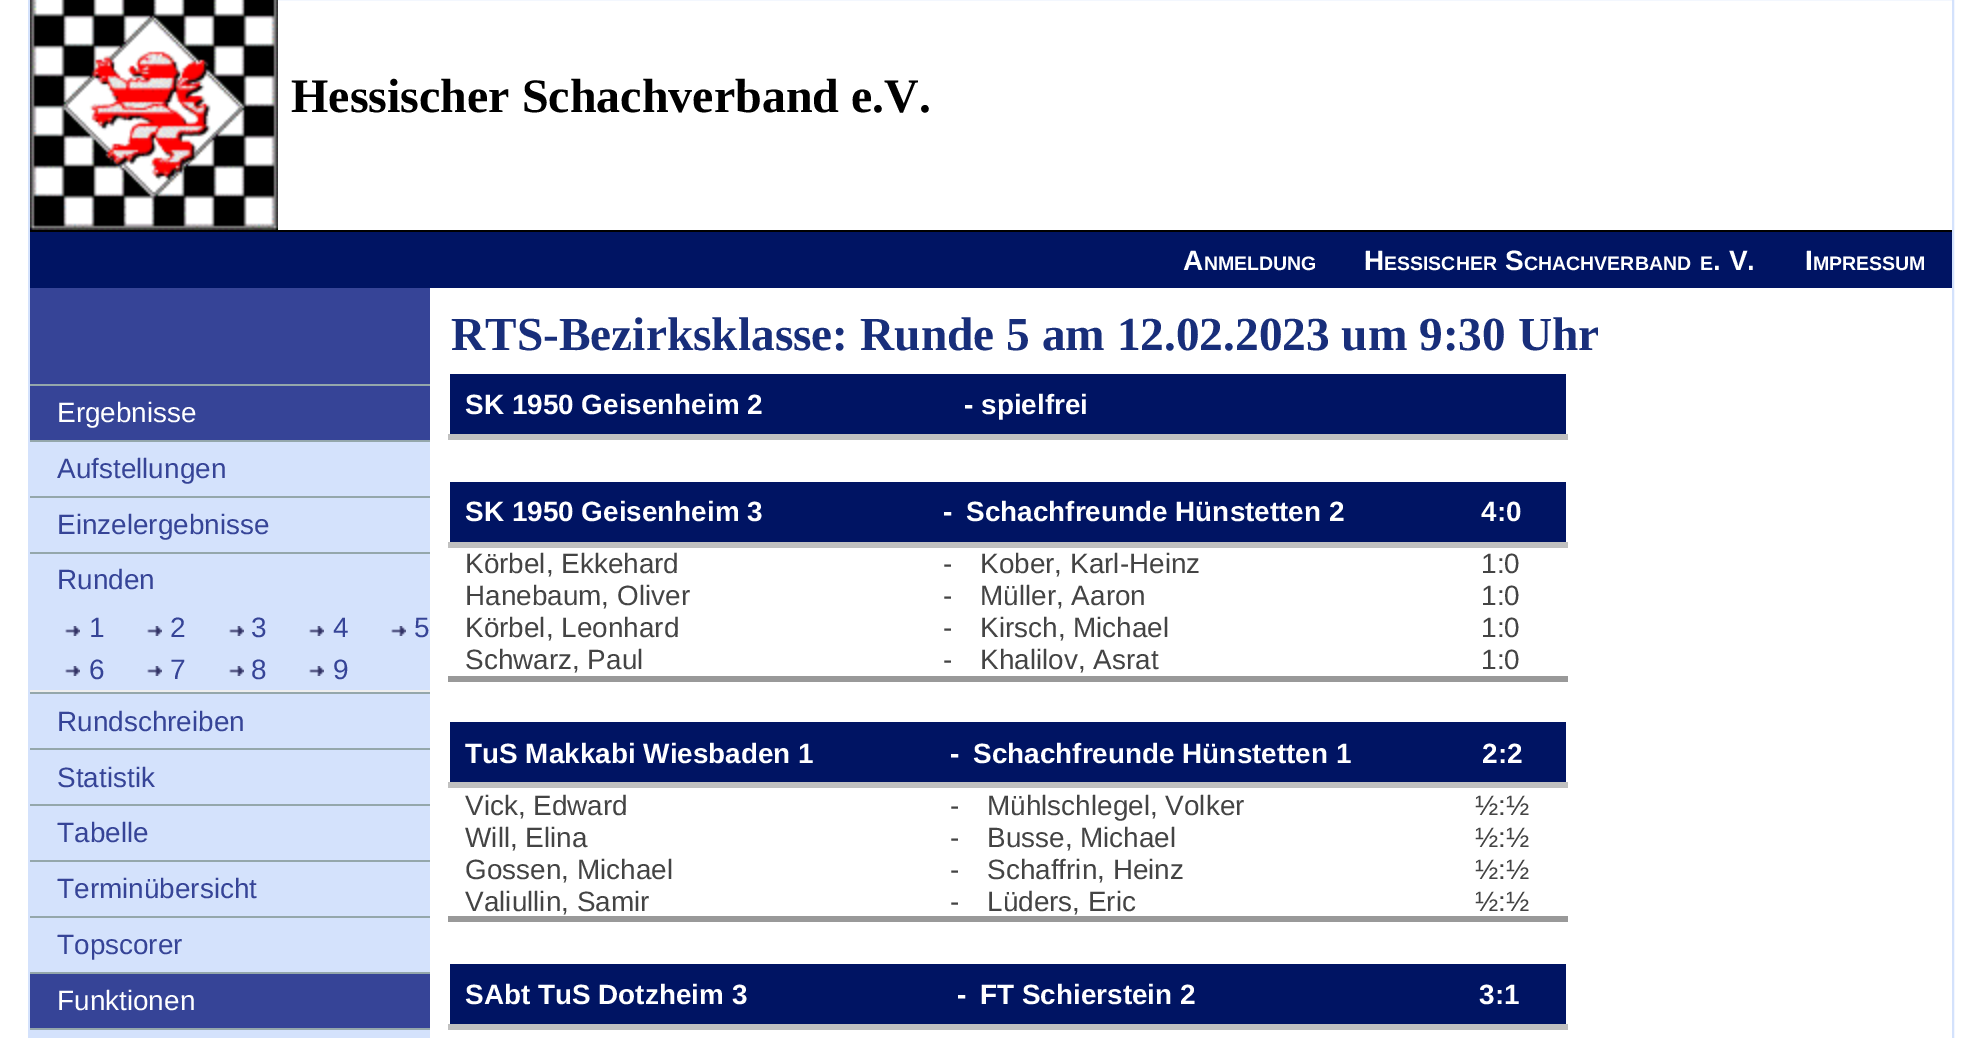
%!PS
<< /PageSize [1981 1038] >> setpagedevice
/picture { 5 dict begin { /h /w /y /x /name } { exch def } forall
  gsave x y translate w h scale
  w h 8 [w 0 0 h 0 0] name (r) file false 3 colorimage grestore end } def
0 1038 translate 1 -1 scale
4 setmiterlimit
1 setgray
0 0 1981 1038 rectfill
0.831 0.886 0.988 setrgbcolor
2 setlinewidth
29 -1 1924 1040 rectstroke
(img1.rgb) 30 0 248 230 picture
/LiberationSerif-Bold [48 0 0 -48 0 0] selectfont
0 setgray
291 112 moveto (Hessischer Schachverband e.V.) show
30 230 1922 2 rectfill
0 0.078 0.388 setrgbcolor
30 232 1922 56 rectfill
/LiberationSans-Bold [28 0 0 -28 0 0] selectfont
1 setgray
1183 270 moveto (A) show
/LiberationSans-Bold [19.5 0 0 -19.5 0 0] selectfont
1204 270 moveto (NMELDUNG) show
/LiberationSans-Bold [28 0 0 -28 0 0] selectfont
1364 270 moveto (H) show
/LiberationSans-Bold [19.5 0 0 -19.5 0 0] selectfont
1384 270 moveto (ESSISCHER) show
/LiberationSans-Bold [28 0 0 -28 0 0] selectfont
1505 270 moveto (S) show
/LiberationSans-Bold [19.5 0 0 -19.5 0 0] selectfont
1524 270 moveto (CHACHVERBAND) show
1700 270 moveto (E) show
/LiberationSans-Bold [28 0 0 -28 0 0] selectfont
1713 270 moveto (. V.) show
1805 270 moveto (I) show
/LiberationSans-Bold [19.5 0 0 -19.5 0 0] selectfont
1813 270 moveto (MPRESSUM) show
0.212 0.267 0.592 setrgbcolor
30 288 400 740 rectfill
0.58 0.655 0.671 setrgbcolor
30 384 400 2 rectfill
/LiberationSans-Regular [27.9 0 0 -27.9 0 0] selectfont
1 setgray
57 422 moveto (Ergebnisse) show
0.831 0.886 0.988 setrgbcolor
30 442 400 54 rectfill
0.58 0.655 0.671 setrgbcolor
30 440 400 2 rectfill
0.212 0.267 0.592 setrgbcolor
57 478 moveto (Aufstellungen) show
0.831 0.886 0.988 setrgbcolor
30 498 400 54 rectfill
0.58 0.655 0.671 setrgbcolor
30 496 400 2 rectfill
0.212 0.267 0.592 setrgbcolor
57 534 moveto (Einzelergebnisse) show
0.831 0.886 0.988 setrgbcolor
30 554 400 136 rectfill
0.58 0.655 0.671 setrgbcolor
30 552 400 2 rectfill
0.212 0.267 0.592 setrgbcolor
57 589 moveto (Runden) show
0.933 setgray
30 690 400 2 rectfill
(img2.rgb) 65 626 15 10 picture
/LiberationSans-Regular [28 0 0 -28 0 0] selectfont
0.212 0.267 0.592 setrgbcolor
89 637 moveto (1) show
(img2.rgb) 147 626 15 10 picture
170 637 moveto (2) show
(img2.rgb) 229 626 15 10 picture
251 637 moveto (3) show
(img2.rgb) 309 626 15 10 picture
333 637 moveto (4) show
(img2.rgb) 391 626 15 10 picture
414 637 moveto (5) show
(img2.rgb) 65 666 15 10 picture
89 679 moveto (6) show
(img2.rgb) 147 666 15 10 picture
170 679 moveto (7) show
(img2.rgb) 229 666 15 10 picture
251 679 moveto (8) show
(img2.rgb) 309 666 15 10 picture
333 679 moveto (9) show
0.831 0.886 0.988 setrgbcolor
30 694 400 54 rectfill
0.58 0.655 0.671 setrgbcolor
30 692 400 2 rectfill
/LiberationSans-Regular [27.9 0 0 -27.9 0 0] selectfont
0.212 0.267 0.592 setrgbcolor
57 731 moveto (Rundschreiben) show
0.831 0.886 0.988 setrgbcolor
30 750 400 54 rectfill
0.58 0.655 0.671 setrgbcolor
30 748 400 2 rectfill
0.212 0.267 0.592 setrgbcolor
57 787 moveto (Statistik) show
0.831 0.886 0.988 setrgbcolor
30 806 400 54 rectfill
0.58 0.655 0.671 setrgbcolor
30 804 400 2 rectfill
0.212 0.267 0.592 setrgbcolor
57 842 moveto (Tabelle) show
0.831 0.886 0.988 setrgbcolor
30 862 400 54 rectfill
0.58 0.655 0.671 setrgbcolor
30 860 400 2 rectfill
0.212 0.267 0.592 setrgbcolor
57 898 moveto (Terminübersicht) show
0.831 0.886 0.988 setrgbcolor
30 918 400 54 rectfill
0.58 0.655 0.671 setrgbcolor
30 916 400 2 rectfill
0.212 0.267 0.592 setrgbcolor
57 954 moveto (Topscorer) show
0.58 0.655 0.671 setrgbcolor
30 972 400 2 rectfill
1 setgray
57 1010 moveto (Funktionen) show
0.831 0.886 0.988 setrgbcolor
30 1030 400 8 rectfill
0.58 0.655 0.671 setrgbcolor
30 1028 400 2 rectfill
/LiberationSerif-Bold [47.35 0 0 -47.35 0 0] selectfont
0.094 0.18 0.478 setrgbcolor
451 350 moveto (RTS-Bezirksklasse: Runde 5 am 12.02.2023 um 9:30 Uhr) show
0 0.078 0.388 setrgbcolor
450 374 1116 60 rectfill
/LiberationSans-Bold [27.9 0 0 -27.9 0 0] selectfont
1 setgray
465 414 moveto (SK 1950 Geisenheim 2) show
964 414 moveto (-) show
981 414 moveto (spielfrei) show
0.753 setgray
448 434 1120 6 rectfill
0 0.078 0.388 setrgbcolor
450 482 1116 60 rectfill
1 setgray
465 521 moveto (SK 1950 Geisenheim 3) show
943 521 moveto (-) show
966 521 moveto (Schachfreunde Hünstetten 2) show
0.753 setgray
448 542 1120 6 rectfill
1 setgray
1481 521 moveto (4:0) show
/LiberationSans-Regular [27.9 0 0 -27.9 0 0] selectfont
0.267 setgray
465 573 moveto (Körbel, Ekkehard) show
943 573 moveto (-) show
980 573 moveto (Kober, Karl-Heinz) show
1481 573 moveto (1:0) show
465 605 moveto (Hanebaum, Oliver) show
943 605 moveto (-) show
980 605 moveto (Müller, Aaron) show
1481 605 moveto (1:0) show
465 637 moveto (Körbel, Leonhard) show
943 637 moveto (-) show
980 637 moveto (Kirsch, Michael) show
1481 637 moveto (1:0) show
465 669 moveto (Schwarz, Paul) show
943 669 moveto (-) show
980 669 moveto (Khalilov, Asrat) show
1481 669 moveto (1:0) show
0.6 setgray
448 676 1120 6 rectfill
0 0.078 0.388 setrgbcolor
450 722 1116 60 rectfill
/LiberationSans-Bold [27.9 0 0 -27.9 0 0] selectfont
1 setgray
465 763 moveto (TuS Makkabi Wiesbaden 1) show
950 763 moveto (-) show
973 763 moveto (Schachfreunde Hünstetten 1) show
0.753 setgray
448 782 1120 6 rectfill
1 setgray
1482 763 moveto (2:2) show
/LiberationSans-Regular [27.9 0 0 -27.9 0 0] selectfont
0.267 setgray
465 815 moveto (Vick, Edward) show
950 815 moveto (-) show
987 815 moveto (Mühlschlegel, Volker) show
1475 815 moveto (½:½) show
465 847 moveto (Will, Elina) show
950 847 moveto (-) show
987 847 moveto (Busse, Michael) show
1475 847 moveto (½:½) show
465 879 moveto (Gossen, Michael) show
950 879 moveto (-) show
987 879 moveto (Schaffrin, Heinz) show
1475 879 moveto (½:½) show
465 911 moveto (Valiullin, Samir) show
950 911 moveto (-) show
987 911 moveto (Lüders, Eric) show
1475 911 moveto (½:½) show
0.6 setgray
448 916 1120 6 rectfill
0 0.078 0.388 setrgbcolor
450 964 1116 60 rectfill
/LiberationSans-Bold [27.9 0 0 -27.9 0 0] selectfont
1 setgray
465 1004 moveto (SAbt TuS Dotzheim 3) show
957 1004 moveto (-) show
980 1004 moveto (FT Schierstein 2) show
0.753 setgray
448 1024 1120 6 rectfill
1 setgray
1479 1004 moveto (3:1) show
showpage
